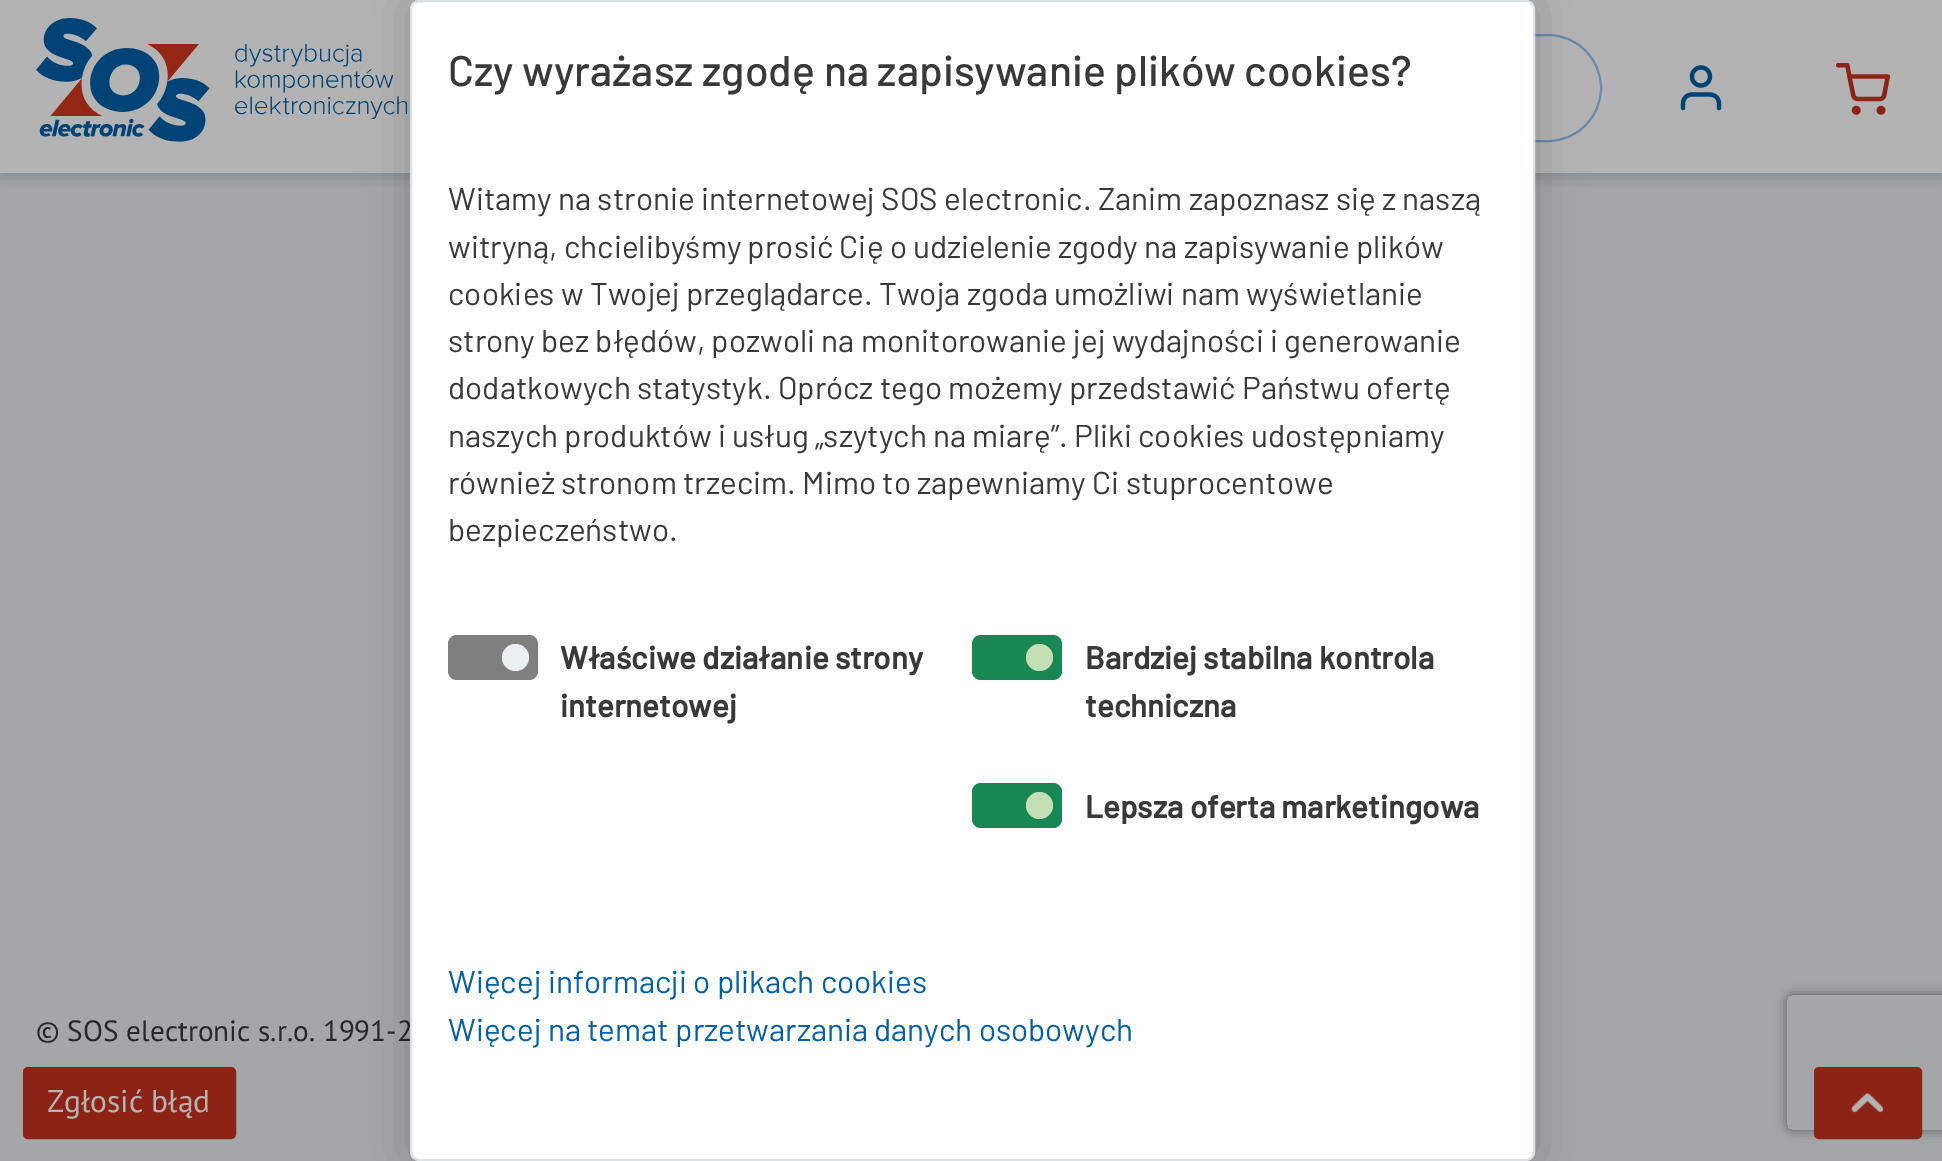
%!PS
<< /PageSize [1942 1161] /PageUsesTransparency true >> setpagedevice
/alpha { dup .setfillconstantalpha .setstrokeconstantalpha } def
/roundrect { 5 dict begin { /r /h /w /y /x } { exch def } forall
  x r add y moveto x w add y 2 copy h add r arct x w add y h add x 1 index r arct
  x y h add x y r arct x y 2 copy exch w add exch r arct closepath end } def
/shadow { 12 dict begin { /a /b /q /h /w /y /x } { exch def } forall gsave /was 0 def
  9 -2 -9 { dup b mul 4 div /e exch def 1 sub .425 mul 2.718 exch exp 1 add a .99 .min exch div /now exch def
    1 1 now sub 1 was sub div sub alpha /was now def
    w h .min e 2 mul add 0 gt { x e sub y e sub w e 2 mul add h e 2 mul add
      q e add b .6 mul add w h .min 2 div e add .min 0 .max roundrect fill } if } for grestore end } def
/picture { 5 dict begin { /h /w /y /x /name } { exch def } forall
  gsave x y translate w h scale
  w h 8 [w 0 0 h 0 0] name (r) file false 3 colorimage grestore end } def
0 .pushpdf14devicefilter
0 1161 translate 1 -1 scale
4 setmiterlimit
0.643 0.655 0.663 setrgbcolor
0 0 1942 1161 rectfill
0.702 setgray
0 0 1942 173 rectfill
gsave
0 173 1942 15 rectclip
0 setgray
0 5 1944 173 0 9 0.15 shadow
grestore
(img1.rgb) 36 18 371 124 picture
0.404 0.541 0.694 setrgbcolor
2 setlinewidth
487 35 1114 106 53 roundrect stroke
(img2.rgb) 1680 65 42 46 picture
(img3.rgb) 1836 63 54 52 picture
/PTSans-Regular [29.25 0 0 -29.25 0 0] selectfont
0.157 setgray
36 1041 moveto (© SOS electronic s.r.o. 1991-2) show
0 setgray
410 0 1125 1161 9 22.5 0.2 shadow
1 setgray
411 1 1123 1159 8 roundrect gsave fill grestore
0.855 0.878 0.894 setrgbcolor
stroke
/Barlow-Medium [42.75 0 0 -42.75 0 0] selectfont
0.224 setgray
448 86 moveto (Czy wyrażasz zgodę na zapisywanie plików cookies?) show
/Barlow-Regular [31.5 0 0 -31.5 0 0] selectfont
448 210 moveto (Witamy na stronie internetowej SOS electronic. Zanim zapoznasz się z naszą) show
448 258 moveto (witryną, chcielibyśmy prosić Cię o udzielenie zgody na zapisywanie plików) show
448 305 moveto (cookies w Twojej przeglądarce. Twoja zgoda umożliwi nam wyświetlanie) show
448 352 moveto (strony bez błędów, pozwoli na monitorowanie jej wydajności i generowanie) show
448 399 moveto (dodatkowych statystyk. Oprócz tego możemy przedstawić Państwu ofertę) show
448 447 moveto (naszych produktów i usług „szytych na miarę”. Pliki cookies udostępniamy) show
448 494 moveto (również stronom trzecim. Mimo to zapewniamy Ci stuprocentowe) show
448 541 moveto (bezpieczeństwo.) show
0.498 setgray
448 635 90 45 9 roundrect fill
0.918 0.937 0.949 setrgbcolor
newpath 515.5 657.5 13.5 0 360 arc closepath fill
/Barlow-Bold [31.5 0 0 -31.5 0 0] selectfont
0.224 setgray
560 669 moveto (Właściwe działanie strony) show
560 717 moveto (internetowej) show
0.098 0.529 0.325 setrgbcolor
972 635 90 45 9 roundrect fill
0.769 0.875 0.702 setrgbcolor
newpath 1039.5 657.5 13.5 0 360 arc closepath fill
0.224 setgray
1085 669 moveto (Bardziej stabilna kontrola) show
1085 717 moveto (techniczna) show
0.098 0.529 0.325 setrgbcolor
972 783 90 45 9 roundrect fill
0.769 0.875 0.702 setrgbcolor
newpath 1039.5 805.5 13.5 0 360 arc closepath fill
0.224 setgray
1085 818 moveto (Lepsza oferta marketingowa) show
/Barlow-Regular [31.5 0 0 -31.5 0 0] selectfont
0 0.376 0.659 setrgbcolor
448 993 moveto (Więcej informacji o plikach cookies) show
448 1041 moveto (Więcej na temat przetwarzania danych osobowych) show
gsave
newpath 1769 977 moveto 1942 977 lineto 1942 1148 lineto 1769 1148 lineto closepath 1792 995 moveto 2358 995 lineto 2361 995 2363 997 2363 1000 curveto 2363 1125 lineto 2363 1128 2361 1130 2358 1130 curveto 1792 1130 lineto 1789 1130 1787 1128 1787 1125 curveto 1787 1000 lineto 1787 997 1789 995 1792 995 curveto closepath eoclip newpath
0.353 setgray
1787 995 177 135 5 5.5 1 shadow
grestore
0.549 0.137 0.082 setrgbcolor
24 1068 211 70 4 roundrect gsave fill grestore
stroke
/PTSans-Regular [31.5 0 0 -31.5 0 0] selectfont
0.702 setgray
47 1112 moveto (Zgłosić błąd) show
0.549 0.137 0.082 setrgbcolor
1815 1068 106 70 4 roundrect gsave fill grestore
stroke
(img4.rgb) 1851 1092 33 21 picture
.poppdf14devicefilter showpage
